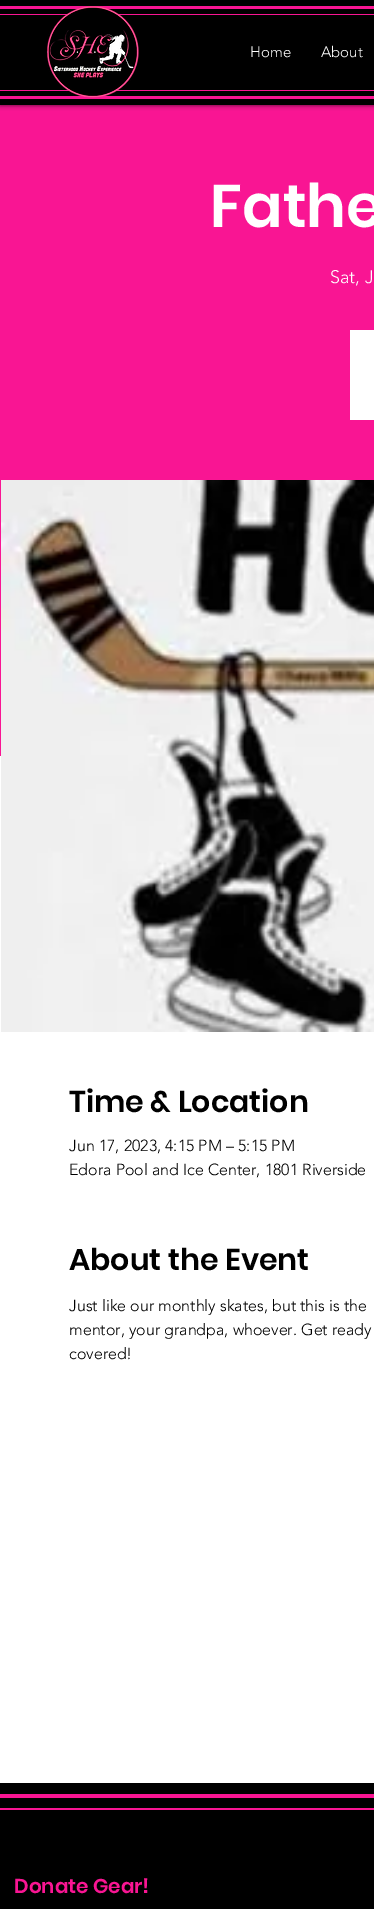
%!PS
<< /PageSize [374 1909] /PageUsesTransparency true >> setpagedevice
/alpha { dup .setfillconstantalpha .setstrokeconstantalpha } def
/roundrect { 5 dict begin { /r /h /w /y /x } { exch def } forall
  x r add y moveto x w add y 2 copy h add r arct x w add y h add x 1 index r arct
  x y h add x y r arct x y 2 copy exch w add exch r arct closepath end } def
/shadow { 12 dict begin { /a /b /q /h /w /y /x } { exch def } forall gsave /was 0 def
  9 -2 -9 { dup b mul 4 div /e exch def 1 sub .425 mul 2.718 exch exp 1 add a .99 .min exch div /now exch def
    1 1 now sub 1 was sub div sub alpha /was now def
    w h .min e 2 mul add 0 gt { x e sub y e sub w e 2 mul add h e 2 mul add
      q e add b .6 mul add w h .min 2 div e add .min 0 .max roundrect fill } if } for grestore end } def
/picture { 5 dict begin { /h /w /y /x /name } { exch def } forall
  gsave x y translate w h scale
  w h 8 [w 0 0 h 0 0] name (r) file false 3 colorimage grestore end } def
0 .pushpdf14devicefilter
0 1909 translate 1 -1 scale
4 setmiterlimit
1 setgray
0 0 374 1909 rectfill
0.976 0.082 0.576 setrgbcolor
0 105 374 651 rectfill
0 setgray
0 0 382 105 0 2.5 0.7 shadow
0 0 374 105 rectfill
0.976 0.082 0.576 setrgbcolor
0 6 374 3 rectfill
0 96 374 3 rectfill
0 14 374 1 rectfill
0 90 374 1 rectfill
(img1.rgb) 47 6 92 92 picture
/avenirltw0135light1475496-Light [15 0 0 -15 0 0] selectfont
1 setgray
250 57 moveto (Home) show
321 57 moveto (About) show
/Poppins-SemiBold [60 0 0 -60 0 0] selectfont
210 227 moveto (Fathe) show
/avenirltw0135light1475496-Light [18 0 0 -18 0 0] selectfont
330 283 moveto (Sat, J) show
350 330 24 90 rectfill
(img2.rgb) 1 480 373 552 picture
/Poppins-SemiBold [30 0 0 -30 0 0] selectfont
0 setgray
69 1112 moveto (Time & Location) show
/avenirltw0135light1475496-Light [16 0 0 -16 0 0] selectfont
69 1151 moveto (Jun 17, 2023, 4:15 PM – 5:15 PM) show
69 1175 moveto (Edora Pool and Ice Center, 1801 Riverside) show
/Poppins-SemiBold [30 0 0 -30 0 0] selectfont
69 1270 moveto (About the Event) show
/avenirltw0135light1475496-Light [16 0 0 -16 0 0] selectfont
69 1311 moveto (Just like our monthly skates, but this is the) show
69 1335 moveto (mentor, your grandpa, whoever. Get ready) show
69 1359 moveto (covered!) show
0 1783 374 126 rectfill
0.976 0.082 0.576 setrgbcolor
0 1794 374 4 rectfill
0 1808 374 2 rectfill
/Poppins-SemiBold [20 0 0 -20 0 0] selectfont
14 1893 moveto (Donate Gear!) show
.poppdf14devicefilter showpage
